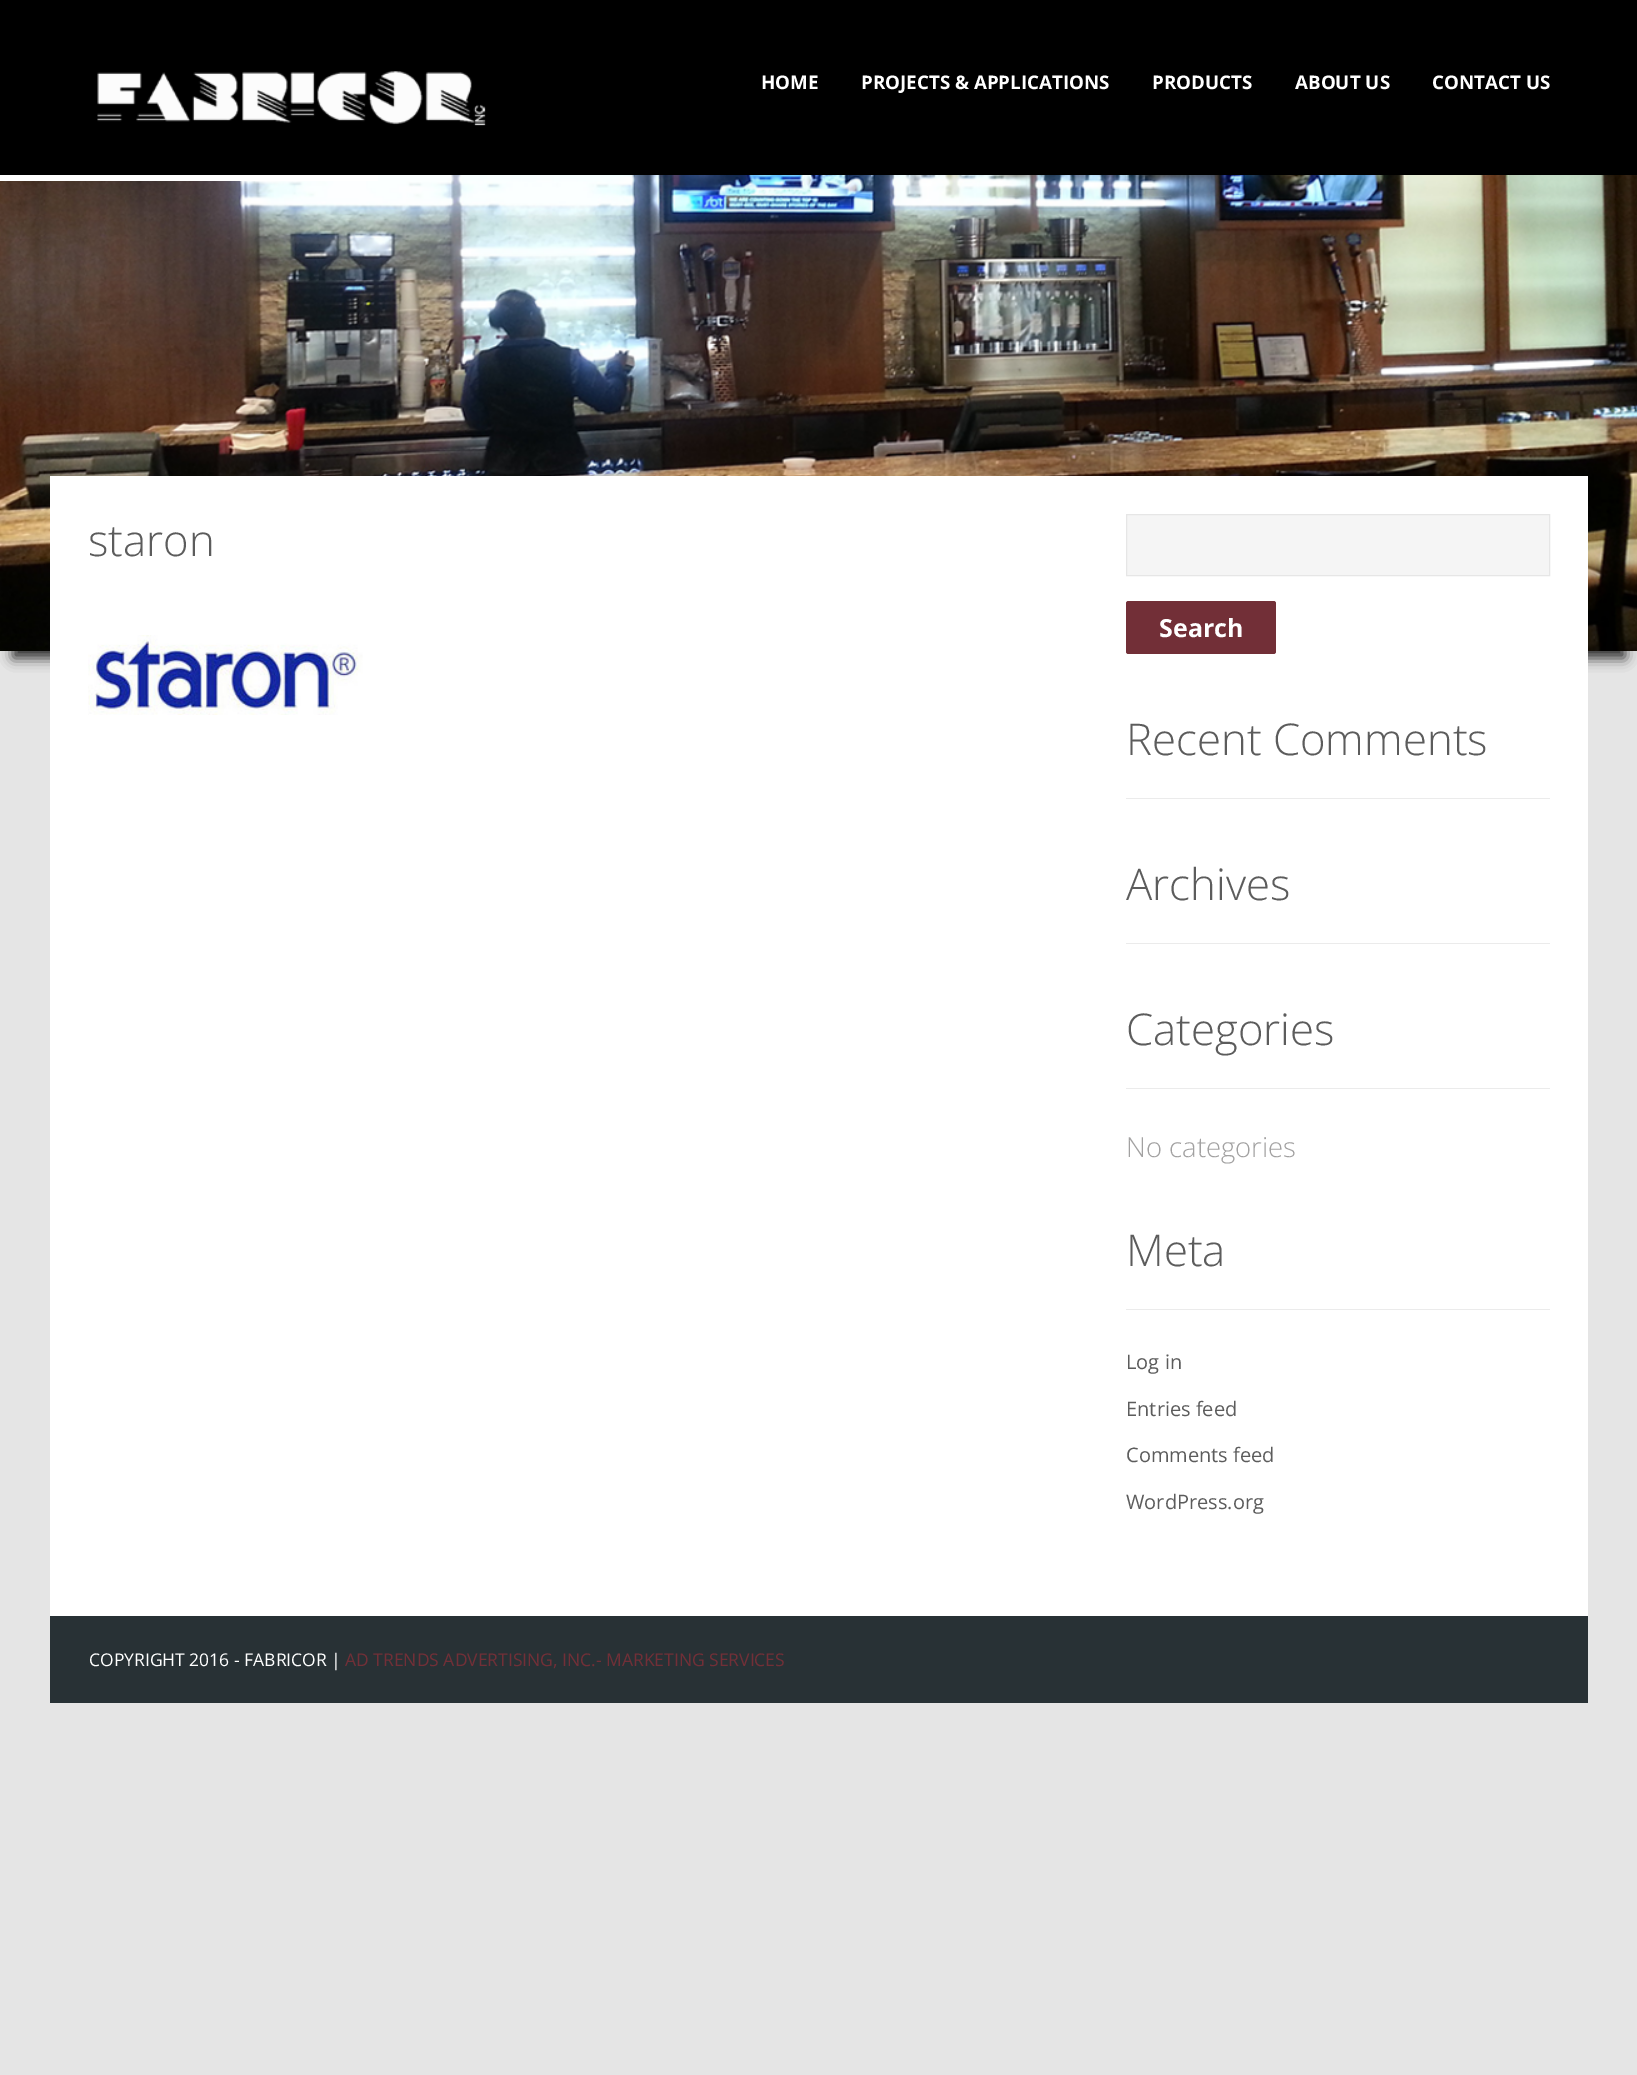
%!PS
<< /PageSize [1637 2075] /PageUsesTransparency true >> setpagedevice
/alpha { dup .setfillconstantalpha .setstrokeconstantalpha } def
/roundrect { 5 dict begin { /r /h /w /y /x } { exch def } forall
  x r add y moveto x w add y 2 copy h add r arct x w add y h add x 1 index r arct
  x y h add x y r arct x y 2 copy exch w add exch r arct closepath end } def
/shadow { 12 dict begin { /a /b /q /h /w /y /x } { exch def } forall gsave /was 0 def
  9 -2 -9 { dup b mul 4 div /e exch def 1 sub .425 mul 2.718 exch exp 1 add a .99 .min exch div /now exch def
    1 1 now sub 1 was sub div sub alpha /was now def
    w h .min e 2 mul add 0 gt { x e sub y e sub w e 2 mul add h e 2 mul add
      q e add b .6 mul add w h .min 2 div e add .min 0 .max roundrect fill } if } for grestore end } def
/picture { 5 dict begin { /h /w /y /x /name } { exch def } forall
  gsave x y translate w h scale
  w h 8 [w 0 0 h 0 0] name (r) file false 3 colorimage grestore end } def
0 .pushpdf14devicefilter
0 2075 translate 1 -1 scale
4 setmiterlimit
0.898 setgray
0 0 1637 2075 rectfill
0 setgray
0 0 1637 175 rectfill
13 599 375 59 0 6.5 0.8 shadow
1250 599 375 59 0 6.5 0.8 shadow
(img1.rgb) 0 175 1637 476 picture
1 setgray
0 175 378 6 rectfill
(img2.rgb) 97 71 389 55 picture
/OpenSans-Bold [18.75 0 0 -18.75 0 0] selectfont
761 89 moveto (HOME) show
861 89 moveto (PROJECTS & APPLICATIONS) show
1152 89 moveto (PRODUCTS) show
1295 89 moveto (ABOUT US) show
1432 89 moveto (CONTACT US) show
50 476 1538 1140 rectfill
/OpenSans-Light [43.75 0 0 -43.75 0 0] selectfont
0.361 setgray
88 556 moveto (staron) show
(img3.rgb) 88 635 275 80 picture
0.961 setgray
newpath 1126.5 514.5 moveto 1549.5 514.5 lineto 1549.5 575.5 lineto 1126.5 575.5 lineto closepath gsave fill grestore
0.902 setgray
stroke
0.447 0.184 0.216 setrgbcolor
1126 601 150 53 2.5 roundrect fill
/OpenSans-Bold [25 0 0 -25 0 0] selectfont
1 setgray
1159 637 moveto (Search) show
0.922 setgray
1126 798 424 1 rectfill
/OpenSans-Light [43.75 0 0 -43.75 0 0] selectfont
0.361 setgray
1126 755 moveto (Recent Comments) show
0.922 setgray
1126 943 424 1 rectfill
0.361 setgray
1126 900 moveto (Archives) show
0.922 setgray
1126 1088 424 1 rectfill
0.361 setgray
1126 1045 moveto (Categories) show
/OpenSans-Light [27.5 0 0 -27.5 0 0] selectfont
0.635 0.631 0.631 setrgbcolor
1126 1157 moveto (No categories) show
0.922 setgray
1126 1309 424 1 rectfill
/OpenSans-Light [43.75 0 0 -43.75 0 0] selectfont
0.361 setgray
1126 1266 moveto (Meta) show
/OpenSans-Regular [20 0 0 -20 0 0] selectfont
1126 1369 moveto (Log in) show
1126 1416 moveto (Entries feed) show
1126 1462 moveto (Comments feed) show
1126 1509 moveto (WordPress.org) show
0.157 0.192 0.208 setrgbcolor
50 1616 1538 87 rectfill
/OpenSans-Regular [17.5 0 0 -17.5 0 0] selectfont
1 setgray
89 1666 moveto (COPYRIGHT 2016 - FABRICOR |) show
0.447 0.184 0.216 setrgbcolor
345 1666 moveto (AD TRENDS ADVERTISING, INC.- MARKETING SERVICES) show
.poppdf14devicefilter showpage
